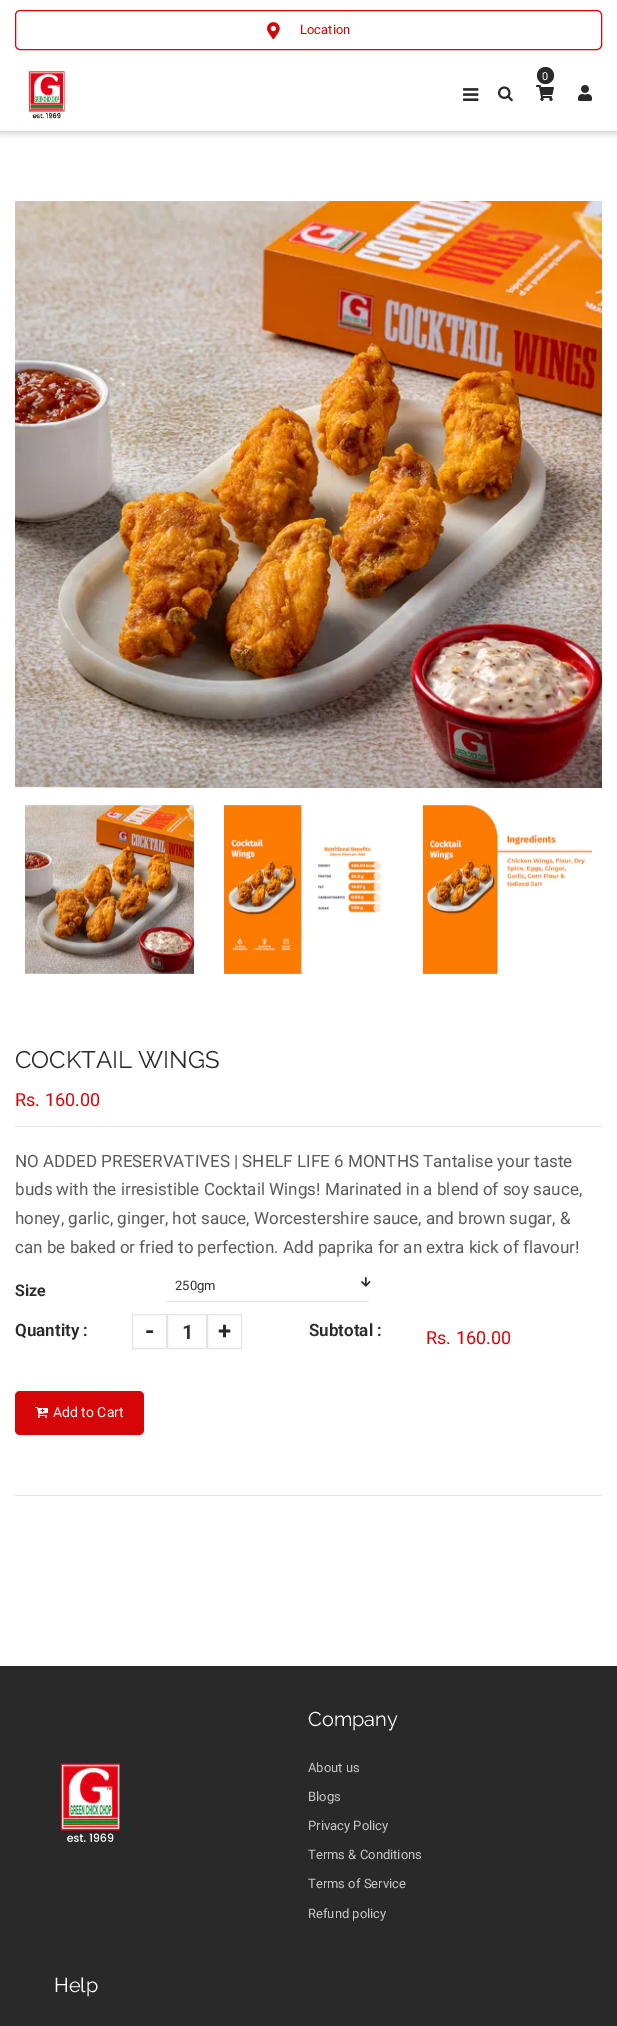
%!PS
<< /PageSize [617 2026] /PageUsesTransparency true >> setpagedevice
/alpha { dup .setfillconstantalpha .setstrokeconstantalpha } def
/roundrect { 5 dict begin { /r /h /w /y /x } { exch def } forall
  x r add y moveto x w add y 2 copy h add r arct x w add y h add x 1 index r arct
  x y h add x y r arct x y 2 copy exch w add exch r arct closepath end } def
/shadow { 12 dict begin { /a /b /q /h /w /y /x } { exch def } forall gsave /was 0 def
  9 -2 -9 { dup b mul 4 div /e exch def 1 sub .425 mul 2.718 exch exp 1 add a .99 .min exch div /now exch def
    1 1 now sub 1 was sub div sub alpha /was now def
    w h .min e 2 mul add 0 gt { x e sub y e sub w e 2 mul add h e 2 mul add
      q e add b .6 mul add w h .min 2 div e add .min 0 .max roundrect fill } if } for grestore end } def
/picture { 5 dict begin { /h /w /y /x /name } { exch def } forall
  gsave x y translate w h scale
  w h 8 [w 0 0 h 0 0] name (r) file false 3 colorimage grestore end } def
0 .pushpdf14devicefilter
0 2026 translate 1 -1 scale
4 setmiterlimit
1 setgray
0 0 617 2026 rectfill
gsave
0 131 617 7 rectclip
0 setgray
0 0 617 131 0 5 0.3 shadow
grestore
0.839 0.02 0.031 setrgbcolor
15.5 10.5 586 39 4.5 roundrect stroke
(img1.rgb) 267 22 13 18 picture
/Roboto-Regular [13 0 0 -13 0 0] selectfont
300 34 moveto (Location) show
(img2.rgb) 28 71 37 48 picture
0.161 setgray
newpath 545.5 75.5 8.5 0 360 arc closepath fill
/Roboto-Regular [11 0 0 -11 0 0] selectfont
1 setgray
542 80 moveto (0) show
(img3.rgb) 536 85 18 16 picture
(img4.rgb) 463 88 16 13 picture
(img5.rgb) 498 86 15 16 picture
(img6.rgb) 578 85 14 16 picture
(img7.rgb) 15 201 587 587 picture
(img8.rgb) 25 805 169 169 picture
(img9.rgb) 224 805 158 169 picture
(img10.rgb) 423 805 169 169 picture
/Raleway-Thin [24 0 0 -24 0 0] selectfont
0.161 setgray
15 1068 moveto (COCKTAIL WINGS) show
/Roboto-Regular [18 0 0 -18 0 0] selectfont
0.839 0.02 0.031 setrgbcolor
15 1106 moveto (Rs. 160.00) show
0.894 setgray
15 1126 587 1 rectfill
/Roboto-Regular [17 0 0 -17 0 0] selectfont
0.353 setgray
15 1167 moveto (NO ADDED PRESERVATIVES | SHELF LIFE 6 MONTHS Tantalise your taste) show
15 1195 moveto (buds with the irresistible Cocktail Wings! Marinated in a blend of soy sauce,) show
15 1224 moveto (honey, garlic, ginger, hot sauce, Worcestershire sauce, and brown sugar, &) show
15 1253 moveto (can be baked or fried to perfection. Add paprika for an extra kick of flavour!) show
/Roboto-SemiBold [16 0 0 -16 0 0] selectfont
0.161 setgray
15 1296 moveto (Size) show
0.894 setgray
166 1301 203 1 rectfill
/Roboto-Regular [13 0 0 -13 0 0] selectfont
0.2 setgray
175 1290 moveto (250gm) show
(img11.rgb) 361 1277 10 10 picture
/Roboto-SemiBold [17 0 0 -17 0 0] selectfont
0.161 setgray
15 1336 moveto (Quantity :) show
0.894 setgray
132.5 1314.5 34 34 rectstroke
/Roboto-Bold [24 0 0 -24 0 0] selectfont
0.161 setgray
145 1339 moveto (-) show
0.894 setgray
167.5 1314.5 39 34 1.5 roundrect stroke
/Roboto-Bold [20 0 0 -20 0 0] selectfont
0.2 setgray
182 1339 moveto (1) show
0.894 setgray
207.5 1314.5 34 34 rectstroke
/Roboto-Bold [24 0 0 -24 0 0] selectfont
0.161 setgray
218 1339 moveto (+) show
/Roboto-SemiBold [17 0 0 -17 0 0] selectfont
309 1336 moveto (Subtotal :) show
/Roboto-Regular [18 0 0 -18 0 0] selectfont
0.839 0.02 0.031 setrgbcolor
426 1344 moveto (Rs. 160.00) show
15 1391 129 44 5 roundrect fill
(img12.rgb) 35 1407 13 11 picture
/Roboto-Regular [14 0 0 -14 0 0] selectfont
1 setgray
53 1417 moveto (Add to Cart) show
0.894 setgray
15 1495 587 1 rectfill
0.161 setgray
0 1666 617 360 rectfill
(img13.rgb) 60 1763 61 80 picture
/Raleway-Thin [20 0 0 -20 0 0] selectfont
1 setgray
308 1726 moveto (Company) show
/Roboto-Regular [13 0 0 -13 0 0] selectfont
0.78 setgray
308 1772 moveto (About us) show
308 1801 moveto (Blogs) show
308 1830 moveto (Privacy Policy) show
308 1859 moveto (Terms & Conditions) show
308 1888 moveto (Terms of Service) show
308 1918 moveto (Refund policy) show
/Raleway-Thin [20 0 0 -20 0 0] selectfont
1 setgray
54 1992 moveto (Help) show
.poppdf14devicefilter showpage
